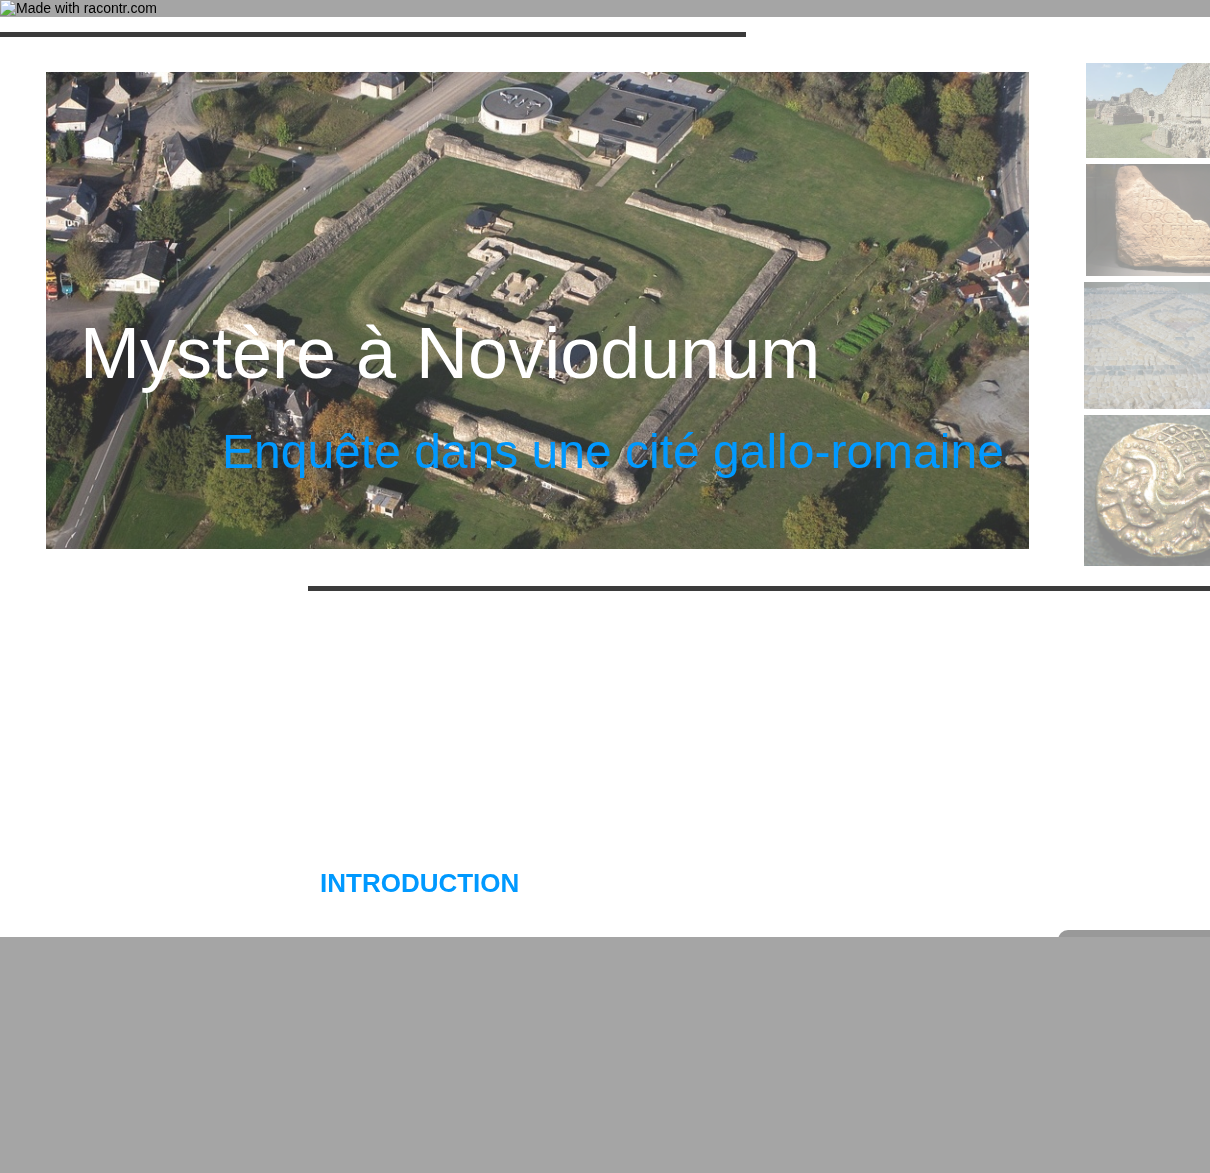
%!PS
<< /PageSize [1210 1173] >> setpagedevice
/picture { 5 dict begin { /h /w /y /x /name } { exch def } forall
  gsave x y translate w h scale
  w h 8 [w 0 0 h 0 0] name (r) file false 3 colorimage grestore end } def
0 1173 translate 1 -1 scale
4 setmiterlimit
1 setgray
0 0 1210 1173 rectfill
(img1.rgb) 0 0 1210 1173 picture
showpage
